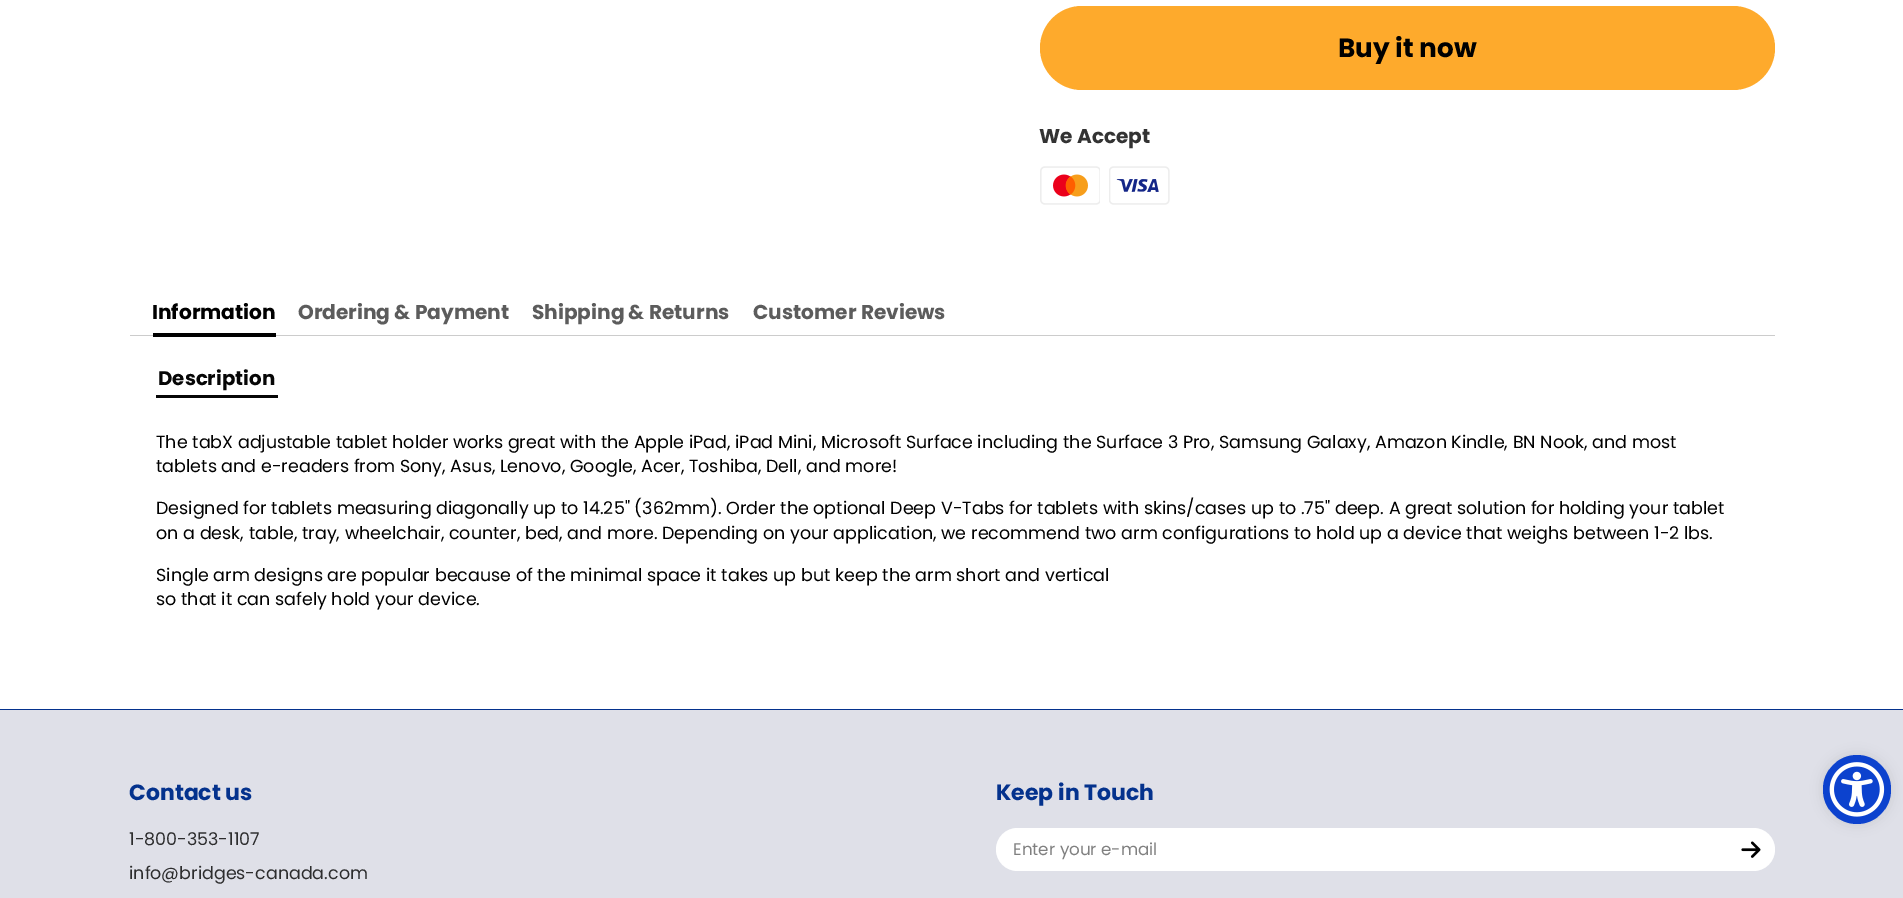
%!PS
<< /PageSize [1903 898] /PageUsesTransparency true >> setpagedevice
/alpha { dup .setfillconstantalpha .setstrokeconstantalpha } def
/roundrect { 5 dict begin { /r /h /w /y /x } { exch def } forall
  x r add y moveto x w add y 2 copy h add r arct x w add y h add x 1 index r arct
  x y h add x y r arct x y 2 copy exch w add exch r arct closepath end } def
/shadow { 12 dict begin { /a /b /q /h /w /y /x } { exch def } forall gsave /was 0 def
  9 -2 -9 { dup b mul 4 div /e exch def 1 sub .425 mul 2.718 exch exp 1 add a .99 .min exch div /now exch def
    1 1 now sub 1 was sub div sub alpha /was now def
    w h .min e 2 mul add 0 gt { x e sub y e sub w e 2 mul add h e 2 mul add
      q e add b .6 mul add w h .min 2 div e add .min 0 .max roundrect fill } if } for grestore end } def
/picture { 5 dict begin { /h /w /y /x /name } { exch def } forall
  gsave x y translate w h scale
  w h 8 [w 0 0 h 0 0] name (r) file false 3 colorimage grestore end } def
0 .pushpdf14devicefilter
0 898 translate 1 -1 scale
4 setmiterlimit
1 setgray
0 0 1903 898 rectfill
0.996 0.667 0.173 setrgbcolor
1040 6 735 84 42 roundrect fill
/Poppins-Bold [26.25 0 0 -26.25 0 0] selectfont
0 setgray
1338 57 moveto (Buy it now) show
/Poppins-Bold [20.1 0 0 -20.1 0 0] selectfont
0.2 setgray
1039 143 moveto (We Accept) show
(img1.rgb) 1040 166 60 39 picture
(img2.rgb) 1109 166 61 39 picture
0.8 setgray
130 335 1645 1 rectfill
0 setgray
153 333 123 4 rectfill
152 319 moveto (Information) show
0.361 setgray
298 319 moveto (Ordering & Payment) show
532 319 moveto (Shipping & Returns) show
753 319 moveto (Customer Reviews) show
0.024 setgray
156 395 122 3 rectfill
/Poppins-Bold [19.75 0 0 -19.75 0 0] selectfont
158 385 moveto (Description) show
/Poppins-Regular [17.5 0 0 -17.5 0 0] selectfont
0 setgray
156 448 moveto (The tabX adjustable tablet holder works great with the Apple iPad, iPad Mini, Microsoft Surface including the Surface 3 Pro, Samsung Galaxy, Amazon Kindle, BN Nook, and most) show
156 472 moveto (tablets and e-readers from Sony, Asus, Lenovo, Google, Acer, Toshiba, Dell, and more!) show
156 514 moveto (Designed for tablets measuring diagonally up to 14.25" \(362mm\). Order the optional Deep V-Tabs for tablets with skins/cases up to .75" deep. A great solution for holding your tablet) show
156 539 moveto (on a desk, table, tray, wheelchair, counter, bed, and more. Depending on your application, we recommend two arm configurations to hold up a device that weighs between 1-2 lbs.) show
156 581 moveto (Single arm designs are popular because of the minimal space it takes up but keep the arm short and vertical) show
156 605 moveto (so that it can safely hold your device.) show
0.875 0.878 0.91 setrgbcolor
0 710 1903 188 rectfill
0.016 0.196 0.553 setrgbcolor
0 709 1903 1 rectfill
/Poppins-Bold [22 0 0 -22 0 0] selectfont
129 800 moveto (Contact us) show
/Poppins-Regular [17.5 0 0 -17.5 0 0] selectfont
0.176 0.176 0.18 setrgbcolor
129 845 moveto (1-800-353-1107) show
129 879 moveto (info@bridges-canada.com) show
/Poppins-Bold [22 0 0 -22 0 0] selectfont
0.016 0.196 0.553 setrgbcolor
996 800 moveto (Keep in Touch) show
1 setgray
996 828 779 43 21.5 roundrect fill
/Poppins-Regular [16.75 0 0 -16.75 0 0] selectfont
0.502 setgray
1013 855 moveto (Enter your e-mail) show
(img3.rgb) 1741 841 20 17 picture
0 setgray
1823 755 68 69 34 6 0.1 shadow
0.047 0.259 0.808 setrgbcolor
1823 755 68 69 34 roundrect fill
(img4.rgb) 1829 762 56 55 picture
.poppdf14devicefilter showpage
